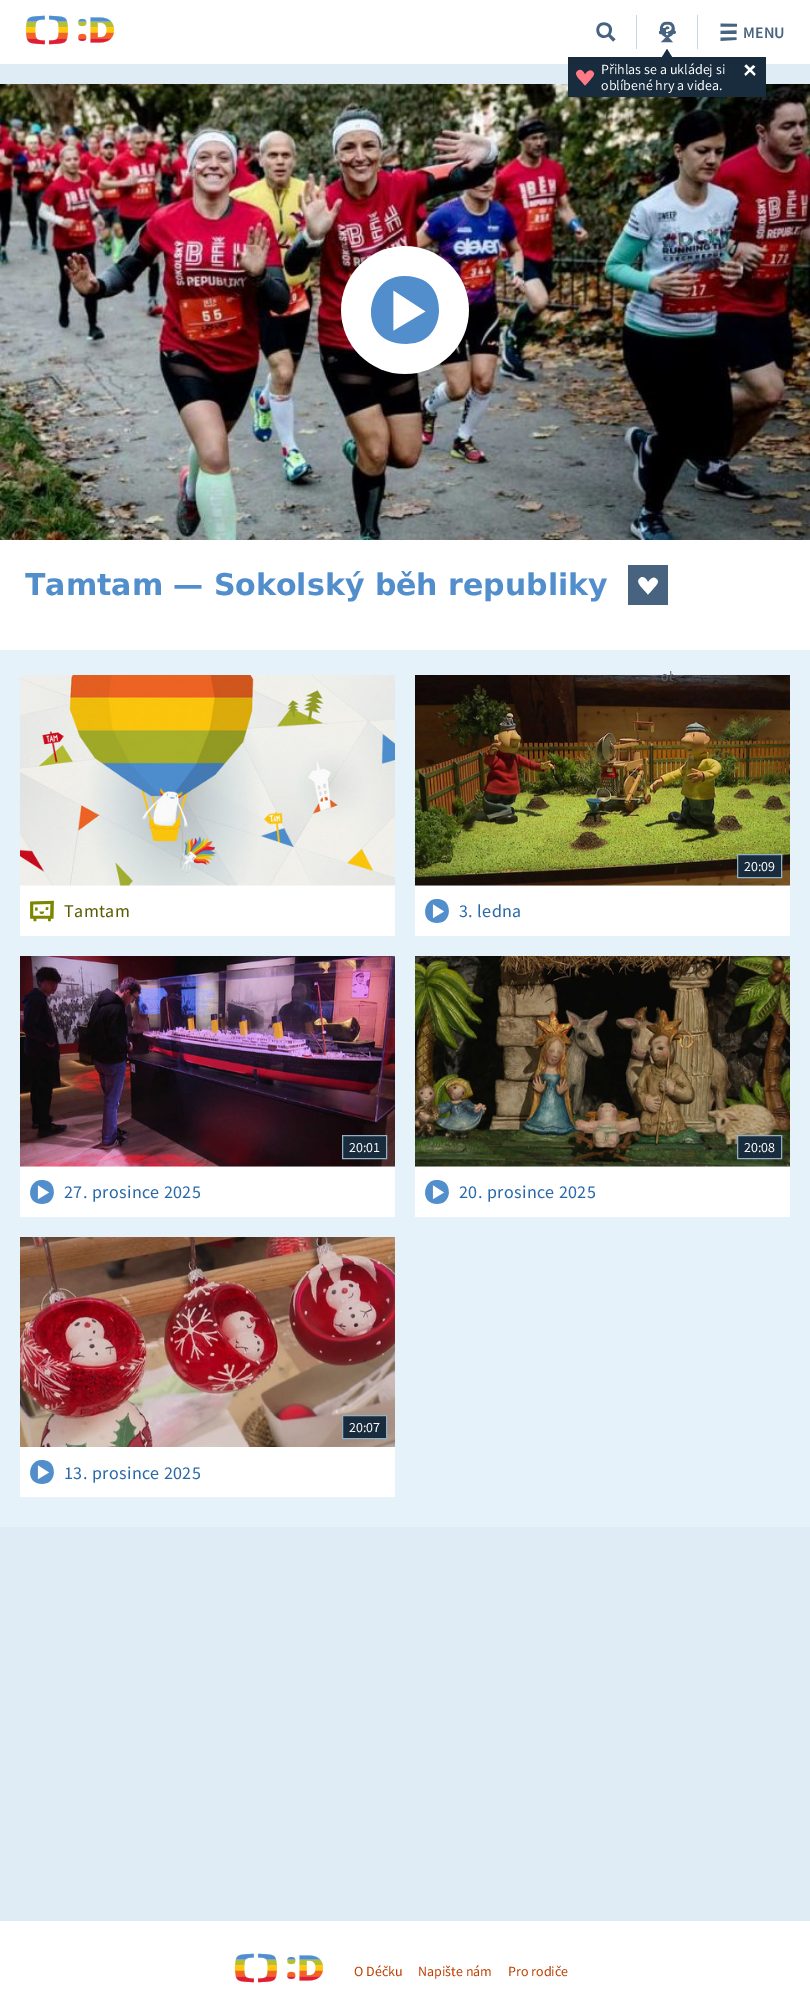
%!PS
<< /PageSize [810 2015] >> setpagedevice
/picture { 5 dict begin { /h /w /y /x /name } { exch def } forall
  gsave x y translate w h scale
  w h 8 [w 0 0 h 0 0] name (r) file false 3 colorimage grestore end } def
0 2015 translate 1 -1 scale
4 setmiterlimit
0.878 0.925 0.961 setrgbcolor
0 0 810 2015 rectfill
1 setgray
0 0 810 64 rectfill
(img1.rgb) 25 15 90 30 picture
(img2.rgb) 596 22 20 20 picture
0.765 0.843 0.902 setrgbcolor
697 15 1 34 rectfill
(img3.rgb) 720 23 17 18 picture
/SourceSansPro-SemiBold [16 0 0 -16 0 0] selectfont
0.282 0.388 0.502 setrgbcolor
743 38 moveto (MENU) show
0.765 0.843 0.902 setrgbcolor
636 15 1 34 rectfill
(img4.rgb) 658 21 18 22 picture
(img7.rgb) 0 84 810 456 picture
0.098 0.173 0.239 setrgbcolor
568 57 198 40 rectfill
newpath 672 57 moveto 662 57 lineto 667 49 lineto closepath fill
(img5.rgb) 576 69 19 17 picture
/SourceSansPro-Regular [14 0 0 -14 0 0] selectfont
1 setgray
601 74 moveto (Přihlas se a ukládej si) show
601 90 moveto (oblíbené hry a videa.) show
(img6.rgb) 744 64 12 12 picture
(img8.rgb) 341 246 128 128 picture
0 540 810 110 rectfill
/DejaVuSans-Bold [30 0 0 -30 0 0] selectfont
0.318 0.557 0.796 setrgbcolor
25 595 moveto (Tamtam — Sokolský běh republiky) show
0.282 0.388 0.502 setrgbcolor
628 565 40 40 rectfill
(img9.rgb) 638 577 20 18 picture
0.902 0.949 0.98 setrgbcolor
0 650 810 877 rectfill
1 setgray
415 885 375 51 rectfill
(img12.rgb) 415 675 375 211 picture
gsave
623 616 50 120 rectclip
/SourceSansPro-Regular [14 0 0 -14 0 0] selectfont
0.376 0.38 0.396 setrgbcolor
661 681 moveto (ob) show
grestore
20 885 375 51 rectfill
(img10.rgb) 20 675 375 211 picture
(img11.rgb) 30 900 24 22 picture
/SourceSansPro-Regular [18 0 0 -18 0 0] selectfont
0.341 0.365 0 setrgbcolor
64 917 moveto 0.4 0 (Tamtam) ashow
0.098 0.173 0.239 setrgbcolor
newpath 737.5 854.5 moveto 781.5 854.5 lineto 781.5 877.5 lineto 737.5 877.5 lineto closepath gsave fill grestore
0.569 0.69 0.769 setrgbcolor
stroke
/SourceSansPro-Regular [14 0 0 -14 0 0] selectfont
1 setgray
744 871 moveto (20:09) show
(img13.rgb) 425 899 24 24 picture
/SourceSansPro-Regular [18 0 0 -18 0 0] selectfont
0.161 0.412 0.671 setrgbcolor
459 917 moveto 0.4 0 (3. ledna) ashow
1 setgray
20 1166 375 51 rectfill
(img14.rgb) 20 956 375 211 picture
0.098 0.173 0.239 setrgbcolor
newpath 342.5 1135.5 moveto 386.5 1135.5 lineto 386.5 1158.5 lineto 342.5 1158.5 lineto closepath gsave fill grestore
0.569 0.69 0.769 setrgbcolor
stroke
/SourceSansPro-Regular [14 0 0 -14 0 0] selectfont
1 setgray
349 1152 moveto (20:01) show
(img13.rgb) 30 1180 24 24 picture
/SourceSansPro-Regular [18 0 0 -18 0 0] selectfont
0.161 0.412 0.671 setrgbcolor
64 1198 moveto 0.4 0 (27. prosince 2025) ashow
1 setgray
415 1166 375 51 rectfill
(img15.rgb) 415 956 375 211 picture
0.098 0.173 0.239 setrgbcolor
newpath 737.5 1135.5 moveto 781.5 1135.5 lineto 781.5 1158.5 lineto 737.5 1158.5 lineto closepath gsave fill grestore
0.569 0.69 0.769 setrgbcolor
stroke
/SourceSansPro-Regular [14 0 0 -14 0 0] selectfont
1 setgray
744 1152 moveto (20:08) show
(img13.rgb) 425 1180 24 24 picture
/SourceSansPro-Regular [18 0 0 -18 0 0] selectfont
0.161 0.412 0.671 setrgbcolor
459 1198 moveto 0.4 0 (20. prosince 2025) ashow
(img16.rgb) 20 1237 375 210 picture
0.098 0.173 0.239 setrgbcolor
newpath 342.5 1415.5 moveto 386.5 1415.5 lineto 386.5 1438.5 lineto 342.5 1438.5 lineto closepath gsave fill grestore
0.569 0.69 0.769 setrgbcolor
stroke
/SourceSansPro-Regular [14 0 0 -14 0 0] selectfont
1 setgray
349 1432 moveto (20:07) show
20 1447 375 50 rectfill
(img13.rgb) 30 1460 24 24 picture
/SourceSansPro-Regular [18 0 0 -18 0 0] selectfont
0.161 0.412 0.671 setrgbcolor
64 1479 moveto 0.4 0 (13. prosince 2025) ashow
1 setgray
0 1921 810 94 rectfill
(img1.rgb) 234 1953 90 30 picture
/SourceSansPro-Regular [14 0 0 -14 0 0] selectfont
0.741 0.239 0 setrgbcolor
354 1976 moveto (O Déčku) show
418 1976 moveto (Napište nám) show
508 1976 moveto (Pro rodiče) show
showpage
